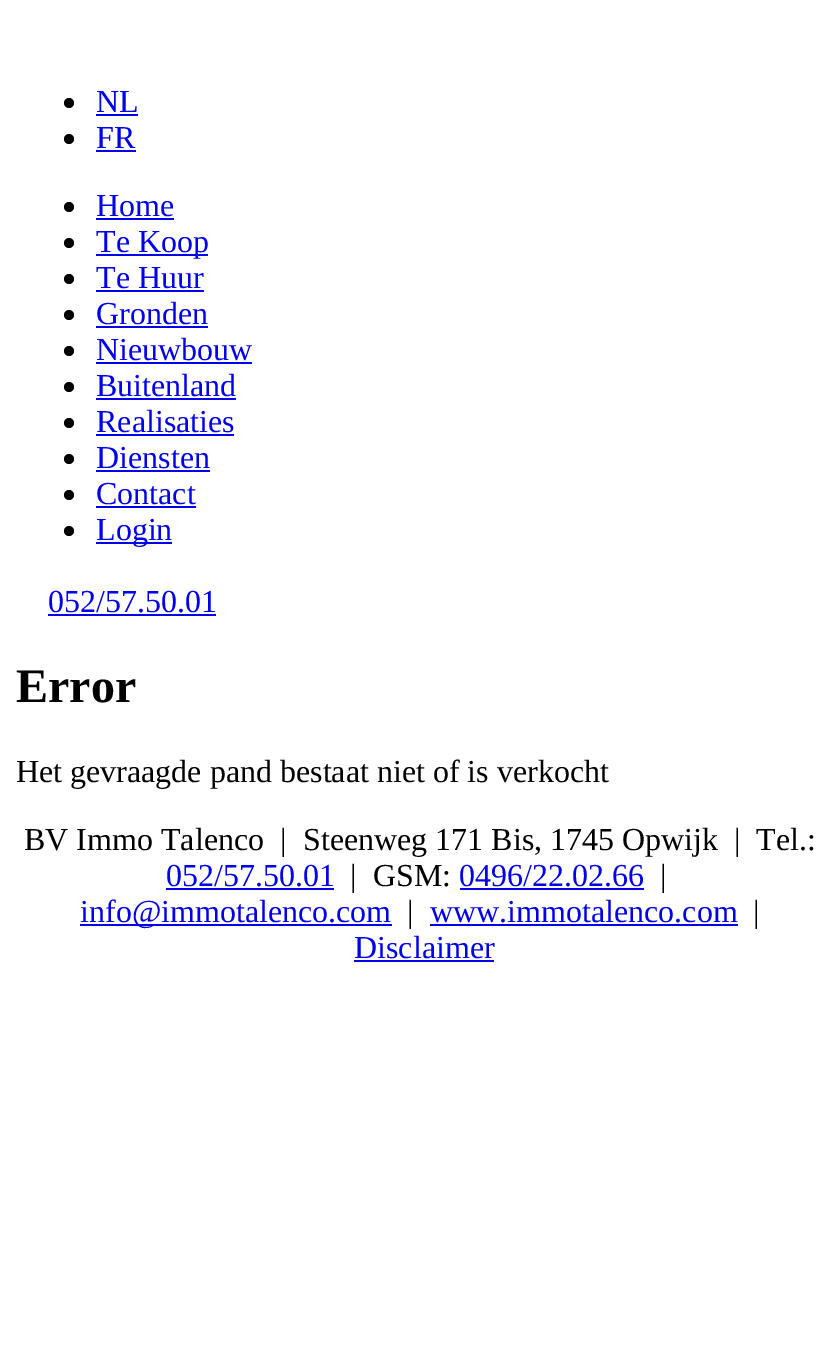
%!PS
<< /PageSize [839 1361] >> setpagedevice
0 1361 translate 1 -1 scale
4 setmiterlimit
1 setgray
0 0 839 1361 rectfill
0 setgray
newpath 69 103 5 0 360 arc closepath fill
/LiberationSerif-Regular [32 0 0 -32 0 0] selectfont
0 0 0.933 setrgbcolor
96 112 moveto (NL) show
96 114 42 2 rectfill
0 setgray
newpath 69 139 5 0 360 arc closepath fill
0 0 0.933 setrgbcolor
96 148 moveto (FR) show
96 150 40 2 rectfill
0 setgray
newpath 69 207 5 0 360 arc closepath fill
0 0 0.933 setrgbcolor
96 216 moveto (Home) show
96 218 78 2 rectfill
0 setgray
newpath 69 243 5 0 360 arc closepath fill
0 0 0.933 setrgbcolor
96 254 112 2 rectfill
96 252 moveto (Te Koop) show
0 setgray
newpath 69 279 5 0 360 arc closepath fill
0 0 0.933 setrgbcolor
96 288 moveto (Te Huur) show
96 290 108 2 rectfill
0 setgray
newpath 69 315 5 0 360 arc closepath fill
0 0 0.933 setrgbcolor
96 324 moveto (Gronden) show
96 326 112 2 rectfill
0 setgray
newpath 69 351 5 0 360 arc closepath fill
0 0 0.933 setrgbcolor
96 360 moveto (Nieuwbouw) show
96 362 156 2 rectfill
0 setgray
newpath 69 387 5 0 360 arc closepath fill
0 0 0.933 setrgbcolor
96 396 moveto (Buitenland) show
96 398 140 2 rectfill
0 setgray
newpath 69 423 5 0 360 arc closepath fill
0 0 0.933 setrgbcolor
96 432 moveto (Realisaties) show
96 434 138 2 rectfill
0 setgray
newpath 69 459 5 0 360 arc closepath fill
0 0 0.933 setrgbcolor
96 468 moveto (Diensten) show
96 470 114 2 rectfill
0 setgray
newpath 69 495 5 0 360 arc closepath fill
0 0 0.933 setrgbcolor
96 504 moveto (Contact) show
96 506 100 2 rectfill
0 setgray
newpath 69 531 5 0 360 arc closepath fill
0 0 0.933 setrgbcolor
96 542 76 2 rectfill
96 540 moveto (Login) show
48 612 moveto (052/57.50.01) show
48 614 168 2 rectfill
/LiberationSerif-Bold [48 0 0 -48 0 0] selectfont
0 setgray
16 702 moveto (Error) show
/LiberationSerif-Regular [32 0 0 -32 0 0] selectfont
16 782 moveto (Het gevraagde pand bestaat niet of is verkocht) show
24 850 moveto (BV Immo Talenco) show
280 850 moveto (|) show
303 850 moveto (Steenweg 171 Bis, 1745 Opwijk) show
734 850 moveto (|) show
756 850 moveto (Tel.:) show
0 0 0.933 setrgbcolor
166 886 moveto (052/57.50.01) show
166 888 168 2 rectfill
0 setgray
350 886 moveto (|) show
373 886 moveto (GSM:) show
0 0 0.933 setrgbcolor
459 886 moveto (0496/22.02.66) show
460 888 184 2 rectfill
0 setgray
660 886 moveto (|) show
0 0 0.933 setrgbcolor
80 924 312 2 rectfill
80 922 moveto (info@immotalenco.com) show
0 setgray
407 922 moveto (|) show
0 0 0.933 setrgbcolor
430 922 moveto (www.immotalenco.com) show
430 924 308 2 rectfill
0 setgray
753 922 moveto (|) show
0 0 0.933 setrgbcolor
354 958 moveto (Disclaimer) show
354 960 140 2 rectfill
showpage
